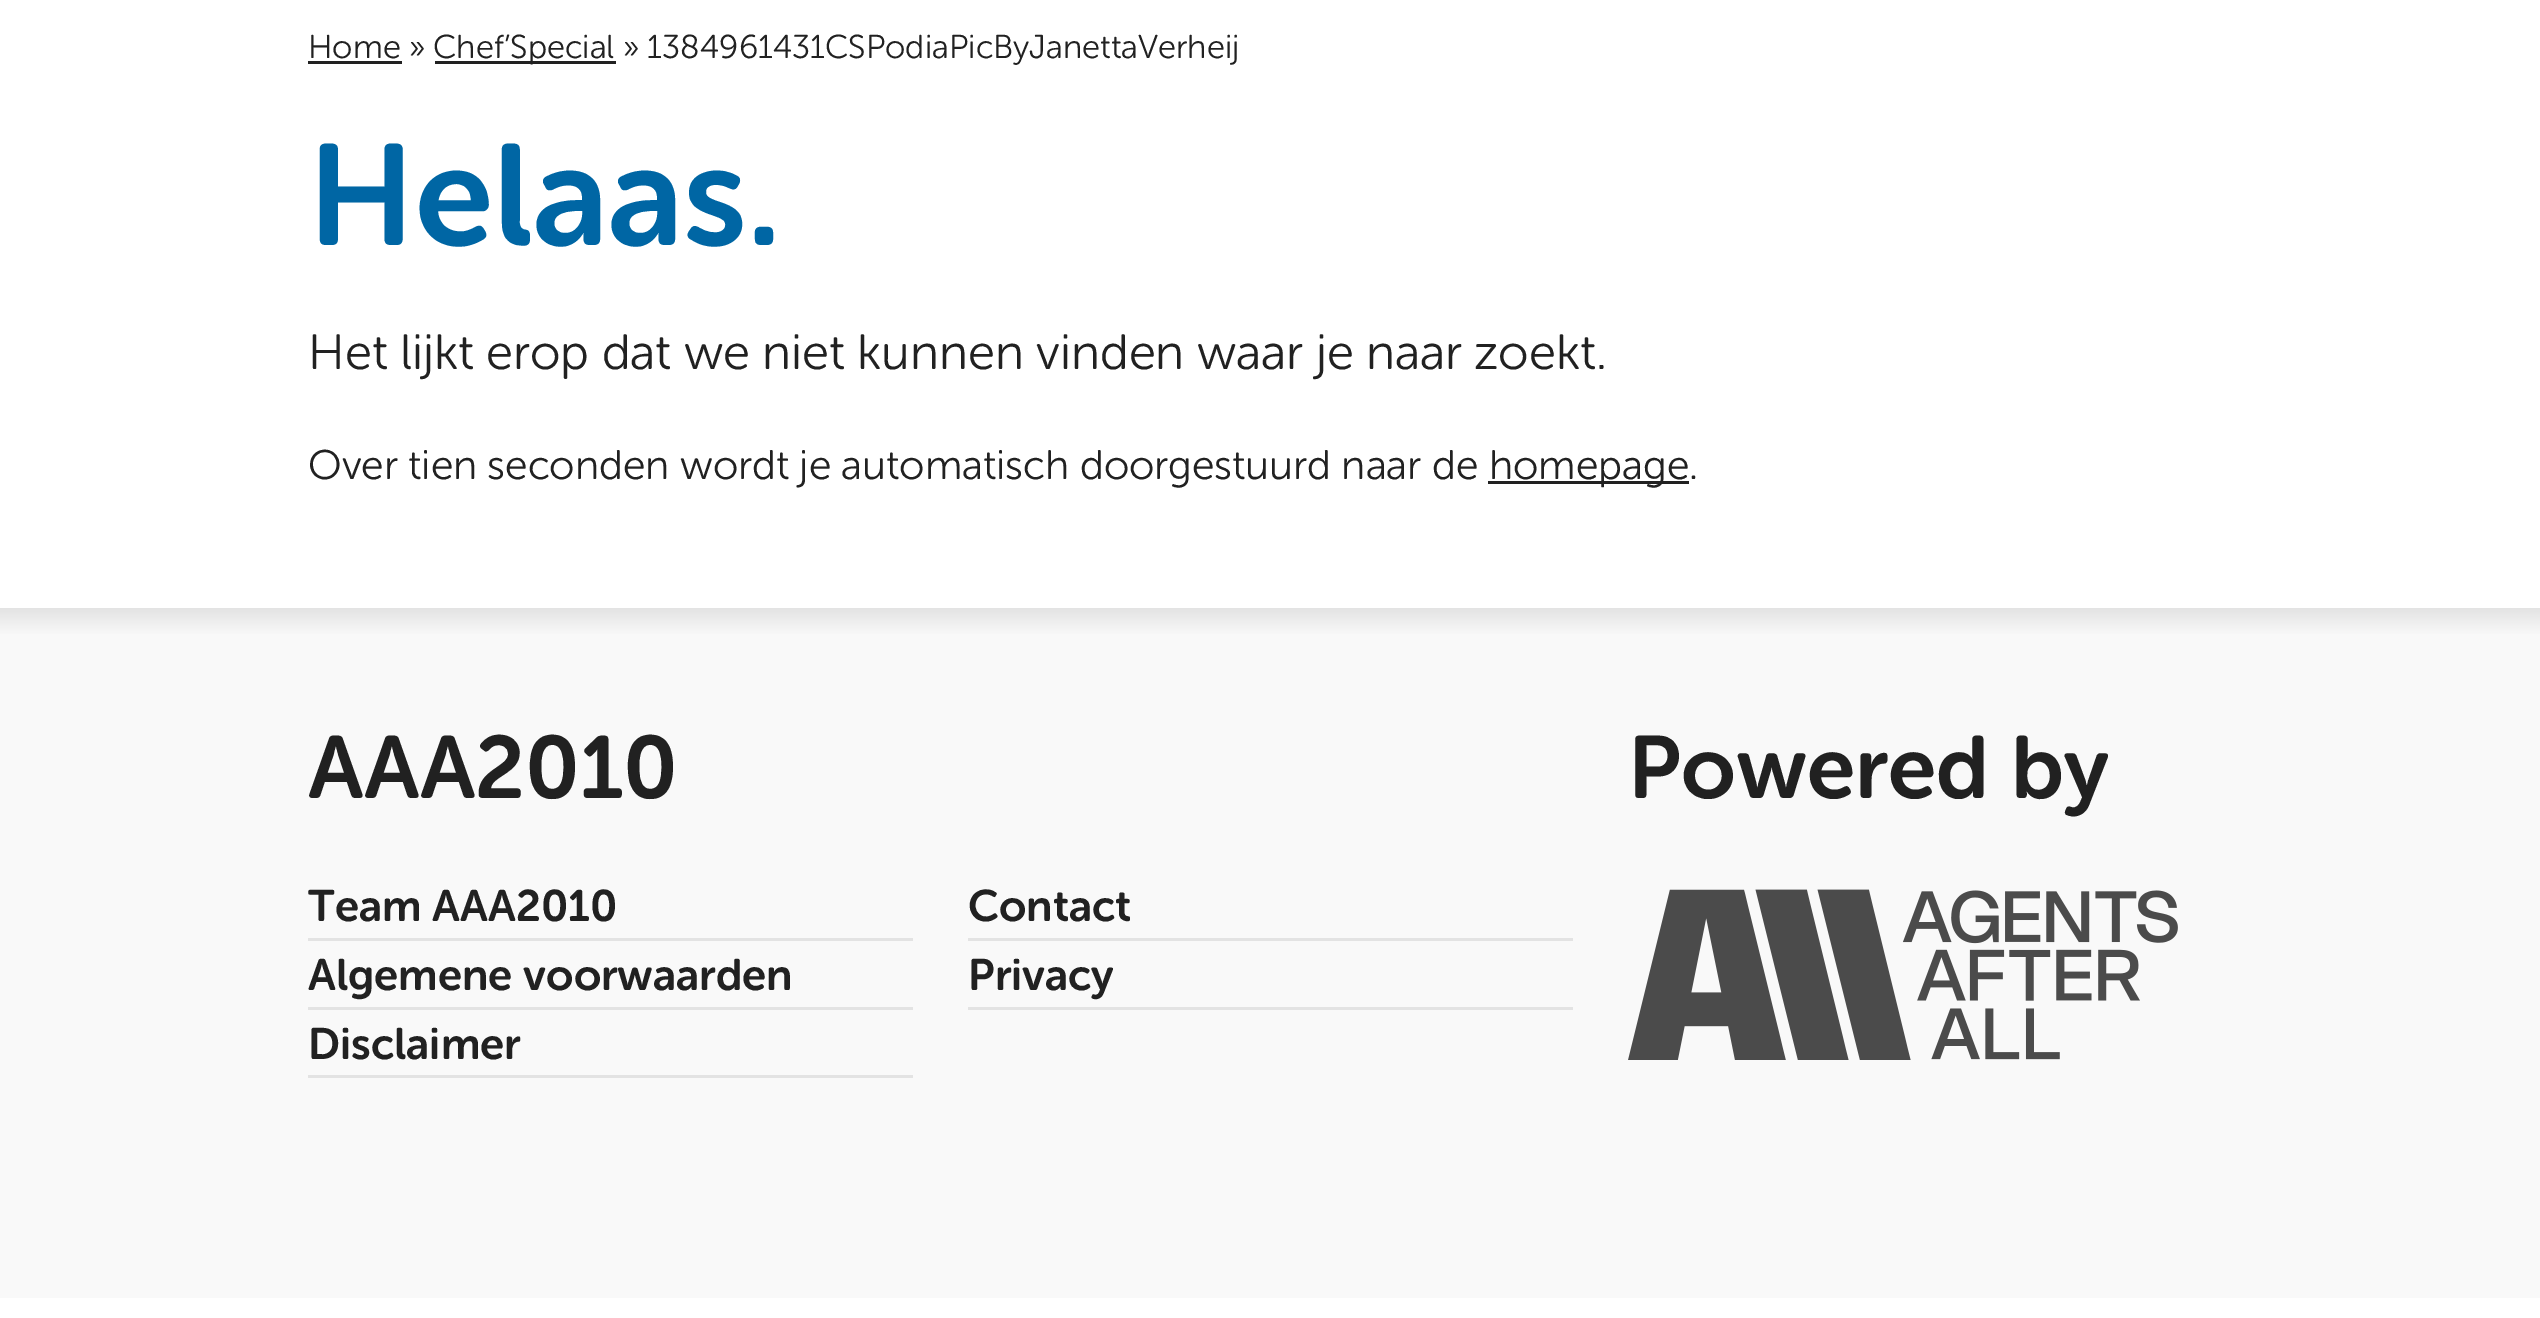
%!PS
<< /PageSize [2540 1318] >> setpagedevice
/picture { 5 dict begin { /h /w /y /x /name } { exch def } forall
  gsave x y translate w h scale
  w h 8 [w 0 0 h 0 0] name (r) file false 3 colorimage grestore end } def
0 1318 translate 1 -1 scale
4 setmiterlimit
1 setgray
0 0 2540 1318 rectfill
/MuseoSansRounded-Light [33 0 0 -33 0 0] selectfont
0.129 setgray
308 58 moveto (Home ») show
308 61 94 3 rectfill
435 61 181 3 rectfill
433 58 moveto (Chef’Special » 1384961431CSPodiaPicByJanettaVerheij) show
/MuseoSansRounded-SemiBold [143 0 0 -143 0 0] selectfont
0 0.4 0.643 setrgbcolor
308 245 moveto (Helaas.) show
/MuseoSansRounded-Light [49.5 0 0 -49.5 0 0] selectfont
0.129 setgray
308 369 moveto (Het lijkt erop dat we niet kunnen vinden waar je naar zoekt.) show
/MuseoSansRounded-Light [41.25 0 0 -41.25 0 0] selectfont
308 479 moveto (Over tien seconden wordt je automatisch doorgestuurd naar de) show
1488 481 201 3 rectfill
1489 479 moveto (homepage.) show
0.976 setgray
0 635 2540 663 rectfill
gsave newpath 0 608 moveto 2540 608 lineto 2540 635 lineto 0 635 lineto closepath clip newpath
<< /ShadingType 2 /ColorSpace /DeviceRGB /Coords [1271 608 1271 635] /Extend [true true] /Function << /FunctionType 2 /Domain [0 1] /C0 [0.89 0.89 0.89] /C1 [0.976 0.976 0.976] /N 1 >> >> shfill grestore
/MuseoSansRounded-SemiBold [88 0 0 -88 0 0] selectfont
0.129 setgray
308 798 moveto (AAA2010) show
0.89 setgray
308 938 605 3 rectfill
/MuseoSansRounded-SemiBold [44 0 0 -44 0 0] selectfont
0.129 setgray
308 921 moveto (Team AAA2010) show
0.89 setgray
968 938 605 3 rectfill
0.129 setgray
968 921 moveto (Contact) show
0.89 setgray
308 1007 605 3 rectfill
0.129 setgray
308 990 moveto (Algemene voorwaarden) show
0.89 setgray
968 1007 605 3 rectfill
0.129 setgray
968 990 moveto (Privacy) show
0.89 setgray
308 1075 605 3 rectfill
0.129 setgray
308 1059 moveto (Disclaimer) show
/MuseoSansRounded-SemiBold [88 0 0 -88 0 0] selectfont
1628 798 moveto (Powered by) show
(img1.rgb) 1628 889 550 171 picture
showpage
